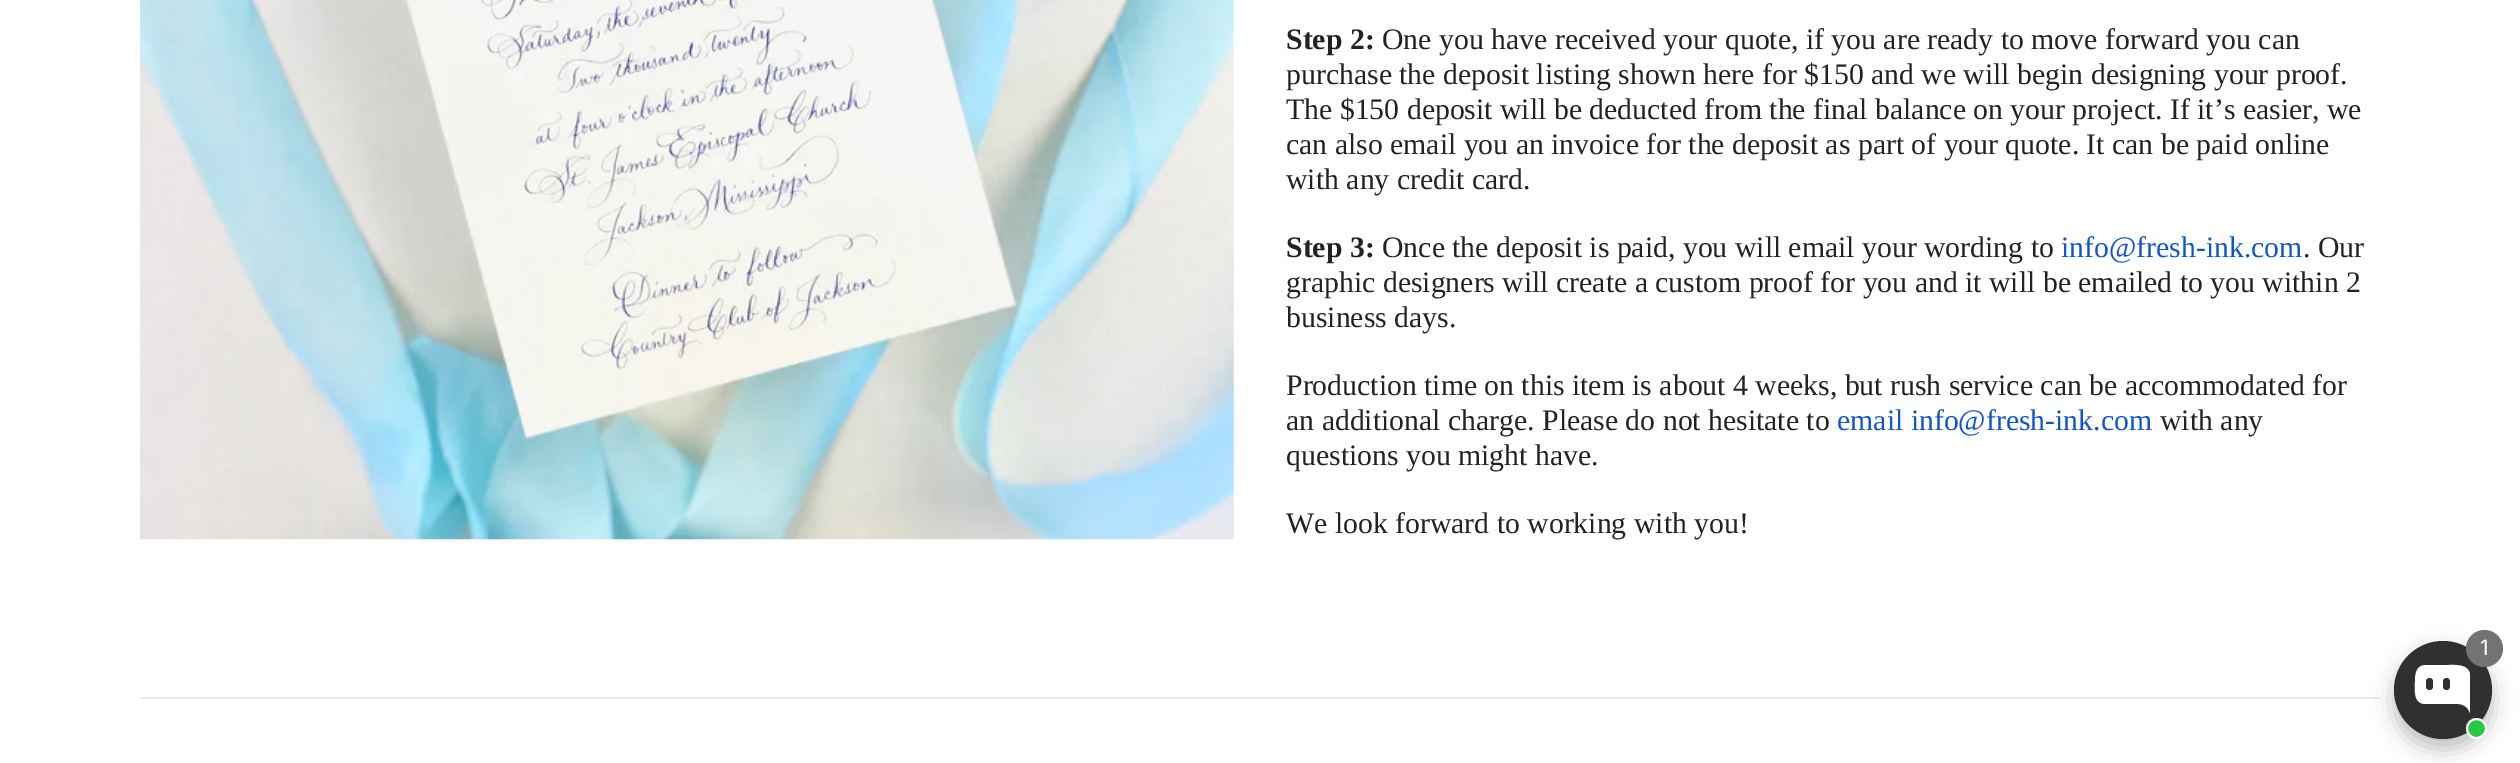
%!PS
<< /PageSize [2520 763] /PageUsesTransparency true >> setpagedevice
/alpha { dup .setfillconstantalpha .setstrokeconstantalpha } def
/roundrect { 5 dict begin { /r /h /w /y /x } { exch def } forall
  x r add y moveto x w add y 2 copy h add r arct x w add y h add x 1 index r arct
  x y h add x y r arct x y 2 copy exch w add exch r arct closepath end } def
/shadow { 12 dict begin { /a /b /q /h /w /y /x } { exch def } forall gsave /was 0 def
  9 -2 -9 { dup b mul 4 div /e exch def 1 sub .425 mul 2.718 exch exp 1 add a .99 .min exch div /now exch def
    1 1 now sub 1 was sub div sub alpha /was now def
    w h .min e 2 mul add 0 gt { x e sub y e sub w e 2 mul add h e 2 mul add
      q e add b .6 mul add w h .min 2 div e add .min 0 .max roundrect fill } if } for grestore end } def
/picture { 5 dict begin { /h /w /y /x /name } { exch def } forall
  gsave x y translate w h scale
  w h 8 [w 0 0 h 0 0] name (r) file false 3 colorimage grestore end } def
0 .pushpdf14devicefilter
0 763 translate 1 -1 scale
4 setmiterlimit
1 setgray
0 0 2520 763 rectfill
(img1.rgb) 140 0 1094 540 picture
/LiberationSerif-Bold [29.75 0 0 -29.75 0 0] selectfont
0.133 setgray
1286 49 moveto (Step 2:) show
/LiberationSerif-Regular [29.75 0 0 -29.75 0 0] selectfont
1382 49 moveto (One you have received your quote, if you are ready to move forward you can) show
1286 84 moveto (purchase the deposit listing shown here for $150 and we will begin designing your proof.) show
1286 119 moveto (The $150 deposit will be deducted from the final balance on your project. If it’s easier, we) show
1286 154 moveto (can also email you an invoice for the deposit as part of your quote. It can be paid online) show
1286 189 moveto (with any credit card.) show
/LiberationSerif-Bold [29.75 0 0 -29.75 0 0] selectfont
1286 257 moveto (Step 3:) show
/LiberationSerif-Regular [29.75 0 0 -29.75 0 0] selectfont
1382 257 moveto (Once the deposit is paid, you will email your wording to) show
0.067 0.333 0.8 setrgbcolor
2061 257 moveto (info@fresh-ink.com) show
0.133 setgray
2303 257 moveto (. Our) show
1286 292 moveto (graphic designers will create a custom proof for you and it will be emailed to you within 2) show
1286 327 moveto (business days.) show
1286 395 moveto (Production time on this item is about 4 weeks, but rush service can be accommodated for) show
1286 430 moveto (an additional charge. Please do not hesitate to) show
0.067 0.333 0.8 setrgbcolor
1837 430 moveto (email info@fresh-ink.com) show
0.133 setgray
2160 430 moveto (with any) show
1286 465 moveto (questions you might have.) show
1286 533 moveto (We look forward to working with you!) show
0.922 setgray
140 697 2240 2 rectfill
0 setgray
2394 651 98 98 49 10.5 0.25 shadow
0.188 setgray
newpath 2443 690 49 0 360 arc closepath fill
1 setgray
newpath 2426 665 moveto 2416 665 2415 674 2415 682 curveto 2415 690 2413 702 2424 704 curveto 2458 704 lineto 2462 704 2466 706 2468 709 curveto 2470 713 lineto 2470 674 lineto 2468 664 2456 665 2448 665 curveto closepath eofill
0.188 setgray
2426 678 7 12 3.5 roundrect fill
2443 678 7 12 3.5 roundrect fill
0.153 0.792 0.251 setrgbcolor
newpath 2476.5 728.5 9.5 0 360 arc closepath gsave fill grestore
1 setgray
2 setlinewidth
stroke
0.451 setgray
newpath 2484.5 648.5 18.5 0 360 arc closepath fill
/Inter-Regular [21 0 0 -21 0 0] selectfont
1 setgray
2480 655 moveto (1) show
.poppdf14devicefilter showpage
